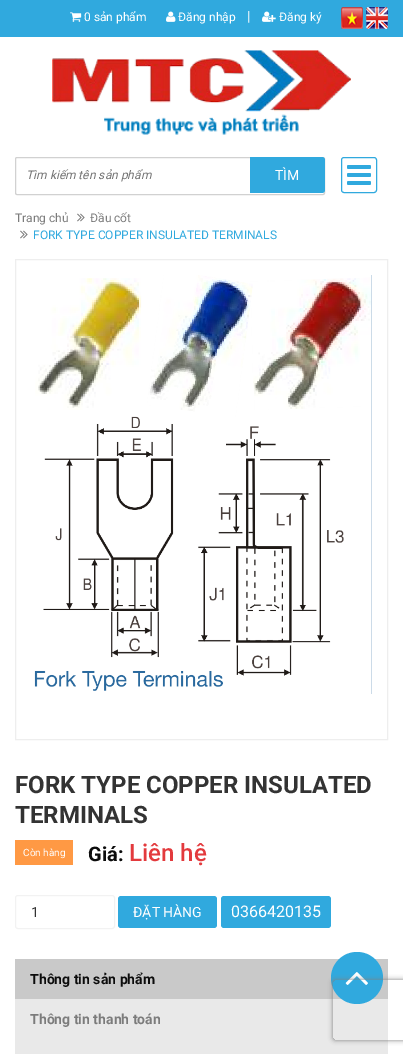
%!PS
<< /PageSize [403 1054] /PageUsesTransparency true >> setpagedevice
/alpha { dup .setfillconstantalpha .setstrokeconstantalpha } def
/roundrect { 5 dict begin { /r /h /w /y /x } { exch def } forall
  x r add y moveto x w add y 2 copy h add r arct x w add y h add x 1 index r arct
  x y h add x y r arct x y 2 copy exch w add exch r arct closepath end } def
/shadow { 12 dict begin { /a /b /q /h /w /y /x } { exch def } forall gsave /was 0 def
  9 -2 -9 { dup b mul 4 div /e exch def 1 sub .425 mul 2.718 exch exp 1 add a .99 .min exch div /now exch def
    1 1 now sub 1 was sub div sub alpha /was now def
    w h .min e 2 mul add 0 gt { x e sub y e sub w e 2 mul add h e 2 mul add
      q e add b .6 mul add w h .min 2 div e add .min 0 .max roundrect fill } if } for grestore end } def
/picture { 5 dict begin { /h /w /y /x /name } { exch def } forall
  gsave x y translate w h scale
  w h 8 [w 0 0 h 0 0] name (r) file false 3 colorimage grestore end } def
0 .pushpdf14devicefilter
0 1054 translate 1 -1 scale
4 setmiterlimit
1 setgray
0 0 403 1054 rectfill
0.188 0.663 0.871 setrgbcolor
0 0 403 37 rectfill
(img1.rgb) 70 12 12 10 picture
/Roboto-Regular [12 0 0 -12 0 0] selectfont
1 setgray
84 21 moveto (0 sản phẩm) show
(img2.rgb) 166 11 10 11 picture
178 21 moveto (Đăng nhập) show
/Roboto-Regular [14 0 0 -14 0 0] selectfont
247 21 moveto (|) show
(img3.rgb) 262 11 14 11 picture
/Roboto-Regular [12 0 0 -12 0 0] selectfont
279 21 moveto (Đăng ký) show
(img4.rgb) 341 7 22 22 picture
(img5.rgb) 366 7 22 22 picture
(img6.rgb) 52 50 299 85 picture
0.82 setgray
15.5 157.5 309 37 1.5 roundrect stroke
/Roboto-Italic [12 0 0 -12 0 0] selectfont
0.459 setgray
26 179 moveto (Tìm kiếm tên sản phẩm) show
0.188 0.663 0.871 setrgbcolor
newpath 250 157 moveto 322 157 lineto 323.5 157 325 158.5 325 160 curveto 325 190 lineto 325 191.5 323.5 193 322 193 curveto 250 193 lineto closepath fill
/Roboto-Regular [14 0 0 -14 0 0] selectfont
1 setgray
275 180 moveto (TÌM) show
0.188 0.663 0.871 setrgbcolor
341.5 157.5 35 35 2.5 roundrect stroke
(img7.rgb) 347 165 24 20 picture
/Roboto-Regular [12 0 0 -12 0 0] selectfont
0.486 setgray
15 222 moveto (Trang chủ) show
(img8.rgb) 77 213 8 9 picture
90 222 moveto (Đầu cốt) show
(img8.rgb) 20 230 8 9 picture
0.188 0.663 0.871 setrgbcolor
33 239 moveto (FORK TYPE COPPER INSULATED TERMINALS) show
0.933 setgray
15.5 259.5 372 480 rectstroke
(img9.rgb) 34 275 338 419 picture
/Roboto-Bold [24 0 0 -24 0 0] selectfont
0.2 setgray
15 793 moveto (FORK TYPE COPPER INSULATED) show
15 823 moveto (TERMINALS) show
1 0.6 0.267 setrgbcolor
15 840 58 25 rectfill
/Roboto-Regular [10 0 0 -10 0 0] selectfont
1 setgray
23 856 moveto (Còn hàng) show
/Roboto-Bold [20 0 0 -20 0 0] selectfont
0.047 setgray
88 861 moveto (Giá:) show
/Roboto-Medium [24 0 0 -24 0 0] selectfont
0.89 0.227 0.239 setrgbcolor
129 861 moveto (Liên hệ) show
0.949 setgray
15.5 895.5 99 33 2.5 roundrect stroke
/Roboto-Regular [14 0 0 -14 0 0] selectfont
0.2 setgray
31 917 moveto (1) show
0.188 0.663 0.871 setrgbcolor
118 896 99 32 3 roundrect fill
1 setgray
133 917 moveto (ĐẶT HÀNG) show
0.188 0.663 0.871 setrgbcolor
221 896 110 32 3 roundrect fill
/Roboto-Regular [16 0 0 -16 0 0] selectfont
1 setgray
231 917 moveto (0366420135) show
0.914 setgray
15 999 373 55 rectfill
0.788 setgray
15 959 373 40 rectfill
/Roboto-Bold [14 0 0 -14 0 0] selectfont
0.047 setgray
30 984 moveto (Thông tin sản phẩm) show
0.486 setgray
30 1024 moveto (Thông tin thanh toán) show
0.188 0.663 0.871 setrgbcolor
newpath 357 978 26 0 360 arc closepath fill
(img10.rgb) 345 972 23 13 picture
gsave
newpath 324 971 moveto 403 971 lineto 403 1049 lineto 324 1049 lineto closepath 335 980 moveto 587 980 lineto 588 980 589 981 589 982 curveto 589 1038 lineto 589 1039 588 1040 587 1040 curveto 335 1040 lineto 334 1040 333 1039 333 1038 curveto 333 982 lineto 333 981 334 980 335 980 curveto closepath eoclip newpath
0.502 setgray
333 980 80 60 2 2.5 1 shadow
grestore
.poppdf14devicefilter showpage
